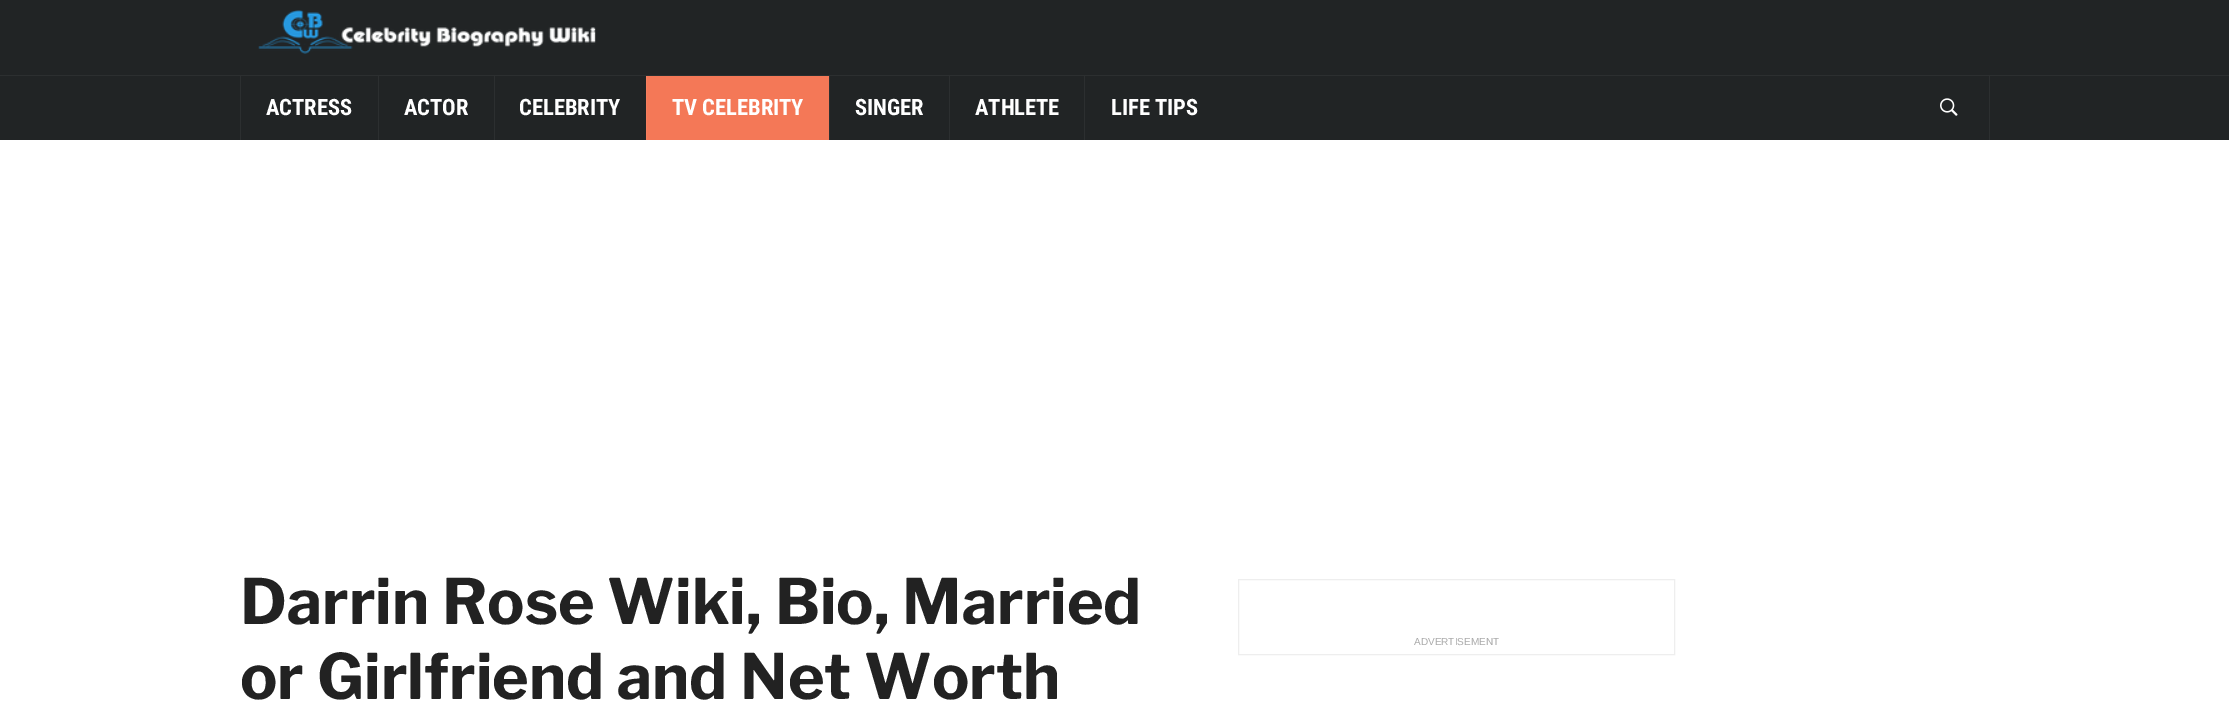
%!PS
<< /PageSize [2229 704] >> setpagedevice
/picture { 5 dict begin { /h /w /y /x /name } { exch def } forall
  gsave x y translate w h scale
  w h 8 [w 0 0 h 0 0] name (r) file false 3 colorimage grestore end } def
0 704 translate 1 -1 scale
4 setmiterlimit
1 setgray
0 0 2229 704 rectfill
0.129 0.141 0.145 setrgbcolor
0 0 2229 140 rectfill
(img1.rgb) 258 10 338 44 picture
0.173 0.184 0.188 setrgbcolor
0 75 2229 1 rectfill
1989 76 1 64 rectfill
240 76 1 64 rectfill
/RobotoCondensed-Bold [22.5 0 0 -22.5 0 0] selectfont
1 setgray
266 115 moveto (ACTRESS) show
0.173 0.184 0.188 setrgbcolor
378 76 1 64 rectfill
1 setgray
404 115 moveto (ACTOR) show
0.173 0.184 0.188 setrgbcolor
494 76 1 64 rectfill
1 setgray
519 115 moveto (CELEBRITY) show
0.957 0.471 0.341 setrgbcolor
647 76 182 64 rectfill
0.961 0.498 0.373 setrgbcolor
646 76 1 64 rectfill
1 setgray
672 115 moveto (TV CELEBRITY) show
0.173 0.184 0.188 setrgbcolor
829 76 1 64 rectfill
1 setgray
855 115 moveto (SINGER) show
0.173 0.184 0.188 setrgbcolor
949 76 1 64 rectfill
1 setgray
975 115 moveto (ATHLETE) show
0.173 0.184 0.188 setrgbcolor
1084 76 1 64 rectfill
1 setgray
1111 115 moveto (LIFE TIPS) show
(img2.rgb) 1940 98 18 18 picture
/LibreFranklin-Bold [62.5 0 0 -62.5 0 0] selectfont
0.133 setgray
240 624 moveto (Darrin Rose Wiki, Bio, Married) show
240 699 moveto (or Girlfriend and Net Worth) show
0.933 setgray
1238.5 579.5 436 75 rectstroke
/LiberationSans-Regular [10 0 0 -10 0 0] selectfont
0.667 setgray
1414 645 moveto (ADVERTISEMENT) show
showpage
